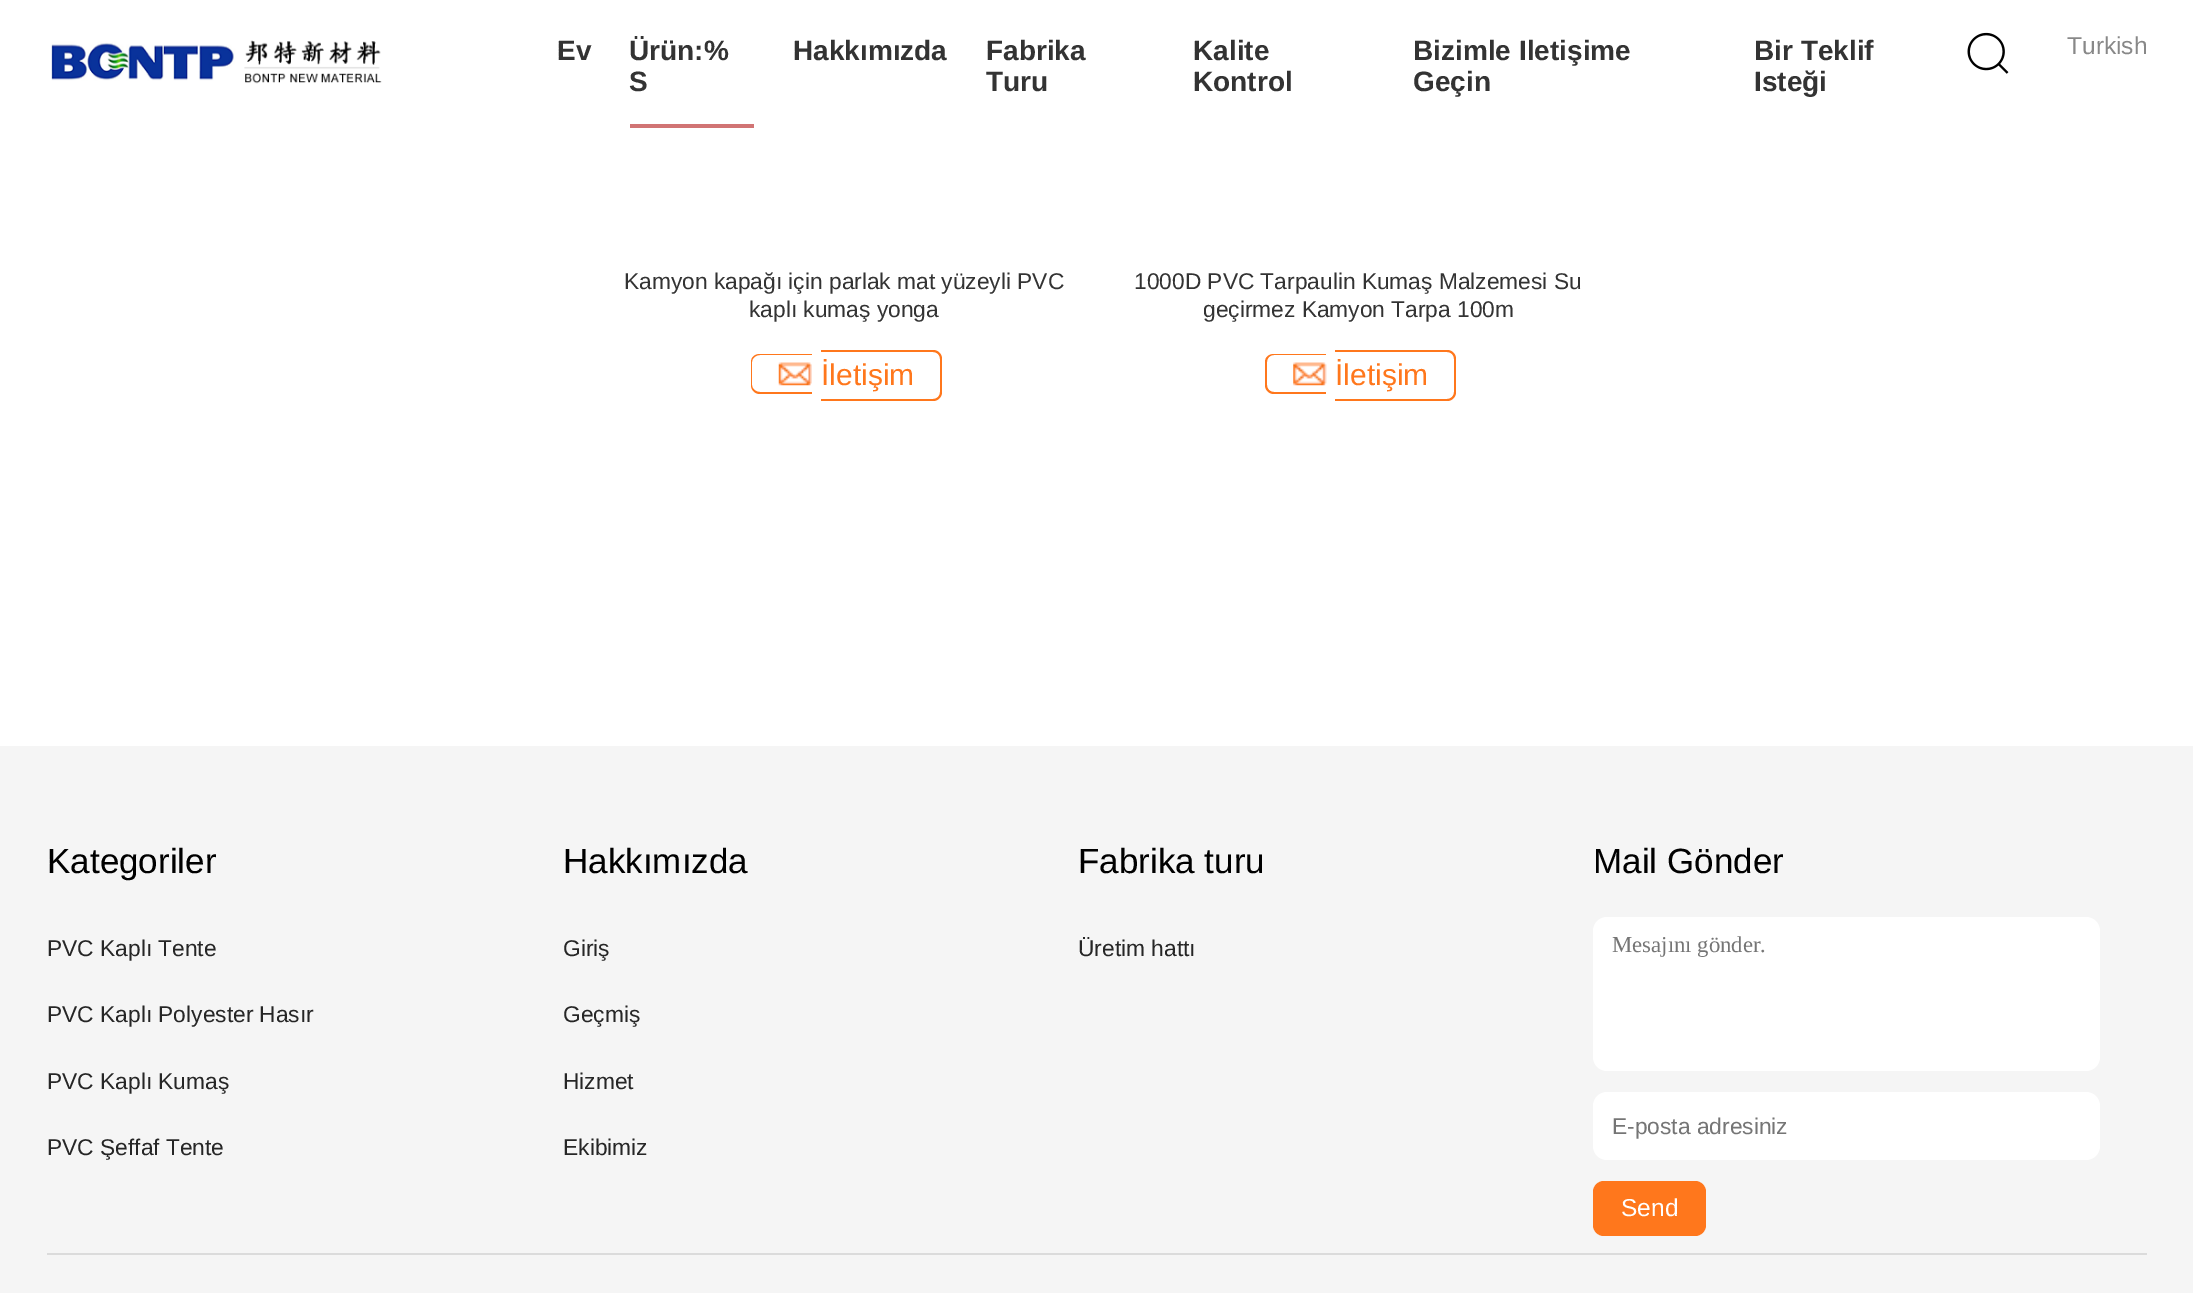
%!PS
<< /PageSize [2193 1293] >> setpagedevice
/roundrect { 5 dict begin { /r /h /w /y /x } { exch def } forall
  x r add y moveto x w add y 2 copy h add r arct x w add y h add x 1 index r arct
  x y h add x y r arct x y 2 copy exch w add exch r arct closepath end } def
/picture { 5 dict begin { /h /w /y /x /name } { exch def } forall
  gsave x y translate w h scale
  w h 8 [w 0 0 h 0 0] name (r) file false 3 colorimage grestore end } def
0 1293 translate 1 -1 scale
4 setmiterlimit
1 setgray
0 0 2193 1293 rectfill
(img1.rgb) 51 40 331 44 picture
/LiberationSans-Bold [28 0 0 -28 0 0] selectfont
0.2 setgray
557 60 moveto (Ev) show
0.82 0.455 0.455 setrgbcolor
630 124 124 4 rectfill
0.2 setgray
629 60 moveto (Ürün:%) show
629 91 moveto (S) show
793 60 moveto (Hakkımızda) show
986 60 moveto (Fabrika) show
986 91 moveto (Turu) show
1193 60 moveto (Kalite) show
1193 91 moveto (Kontrol) show
1413 60 moveto (Bizimle Iletişime) show
1413 91 moveto (Geçin) show
1754 60 moveto (Bir Teklif) show
1754 91 moveto (Isteği) show
(img2.rgb) 1967 32 42 42 picture
/LiberationSans-Regular [24.5 0 0 -24.5 0 0] selectfont
0.533 setgray
2067 54 moveto (Turkish) show
/LiberationSans-Regular [22.75 0 0 -22.75 0 0] selectfont
0.2 setgray
624 289 moveto (Kamyon kapağı için parlak mat yüzeyli PVC) show
749 317 moveto (kaplı kumaş yonga) show
1 0.467 0.11 setrgbcolor
newpath 760 354 moveto 812 354 lineto 812 394 lineto 760 394 lineto 755 394 751 390 751 385 curveto 751 362 lineto 751 357 755 354 760 354 curveto closepath 760 355 moveto 812 355 lineto 812 392 lineto 760 392 lineto 756 392 752 389 752 385 curveto 752 362 lineto 752 358 756 355 760 355 curveto closepath eofill
newpath 821 350 moveto 933 350 lineto 938 350 942 354 942 359 curveto 942 392 lineto 942 397 938 401 933 401 curveto 821 401 lineto closepath 821 352 moveto 933 352 lineto 937 352 940 355 940 359 curveto 940 392 lineto 940 396 937 399 933 399 curveto 821 399 lineto closepath eofill
(img3.rgb) 778 362 34 24 picture
/LiberationSans-Regular [30 0 0 -30 0 0] selectfont
821 385 moveto (İletişim) show
/LiberationSans-Regular [22.75 0 0 -22.75 0 0] selectfont
0.2 setgray
1134 289 moveto (1000D PVC Tarpaulin Kumaş Malzemesi Su) show
1203 317 moveto (geçirmez Kamyon Tarpa 100m) show
1 0.467 0.11 setrgbcolor
newpath 1274 354 moveto 1326 354 lineto 1326 394 lineto 1274 394 lineto 1269 394 1265 390 1265 385 curveto 1265 362 lineto 1265 357 1269 354 1274 354 curveto closepath 1274 355 moveto 1326 355 lineto 1326 392 lineto 1274 392 lineto 1270 392 1267 389 1267 385 curveto 1267 362 lineto 1267 358 1270 355 1274 355 curveto closepath eofill
newpath 1335 350 moveto 1447 350 lineto 1452 350 1456 354 1456 359 curveto 1456 392 lineto 1456 397 1452 401 1447 401 curveto 1335 401 lineto closepath 1335 352 moveto 1447 352 lineto 1451 352 1454 355 1454 359 curveto 1454 392 lineto 1454 396 1451 399 1447 399 curveto 1335 399 lineto closepath eofill
(img4.rgb) 1293 362 34 24 picture
/LiberationSans-Regular [30 0 0 -30 0 0] selectfont
1335 385 moveto (İletişim) show
0.961 setgray
0 746 2193 547 rectfill
/LiberationSans-Regular [35 0 0 -35 0 0] selectfont
0 setgray
47 873 moveto (Kategoriler) show
/LiberationSans-Regular [22.75 0 0 -22.75 0 0] selectfont
0.149 setgray
47 956 moveto (PVC Kaplı Tente) show
47 1022 moveto (PVC Kaplı Polyester Hasır) show
47 1089 moveto (PVC Kaplı Kumaş) show
47 1155 moveto (PVC Şeffaf Tente) show
/LiberationSans-Regular [35 0 0 -35 0 0] selectfont
0 setgray
563 873 moveto (Hakkımızda) show
/LiberationSans-Regular [22.75 0 0 -22.75 0 0] selectfont
0.149 setgray
563 956 moveto (Giriş) show
563 1022 moveto (Geçmiş) show
563 1089 moveto (Hizmet) show
563 1155 moveto (Ekibimiz) show
/LiberationSans-Regular [35 0 0 -35 0 0] selectfont
0 setgray
1078 873 moveto (Fabrika turu) show
/LiberationSans-Regular [22.75 0 0 -22.75 0 0] selectfont
0.149 setgray
1078 956 moveto (Üretim hattı) show
/LiberationSans-Regular [35 0 0 -35 0 0] selectfont
0 setgray
1593 873 moveto (Mail Gönder) show
1 setgray
1593 917 507 154 14 roundrect fill
/LiberationSerif-Regular [22.75 0 0 -22.75 0 0] selectfont
0.459 setgray
1612 952 moveto (Mesajını gönder.) show
1 setgray
1593 1092 507 68 14 roundrect fill
/LiberationSans-Regular [22.75 0 0 -22.75 0 0] selectfont
0.459 setgray
1612 1134 moveto (E-posta adresiniz) show
1 0.467 0.11 setrgbcolor
1593 1181 113 55 11 roundrect fill
/LiberationSans-Regular [24.5 0 0 -24.5 0 0] selectfont
1 setgray
1621 1216 moveto (Send) show
0.859 setgray
47 1253 2100 2 rectfill
showpage
